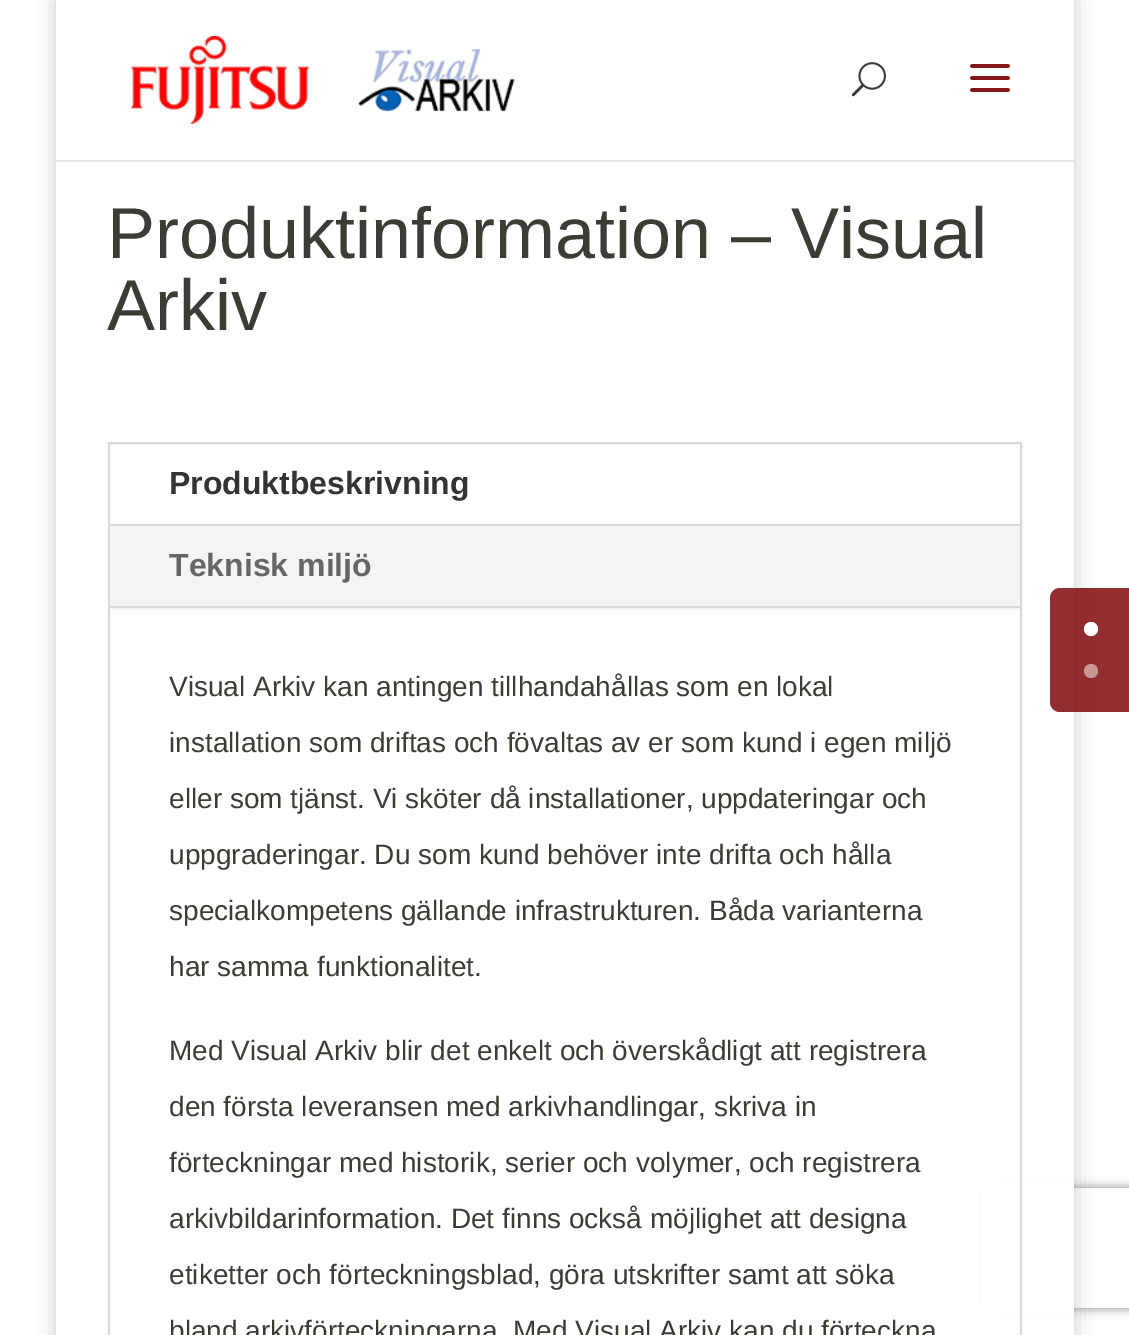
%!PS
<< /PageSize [1129 1335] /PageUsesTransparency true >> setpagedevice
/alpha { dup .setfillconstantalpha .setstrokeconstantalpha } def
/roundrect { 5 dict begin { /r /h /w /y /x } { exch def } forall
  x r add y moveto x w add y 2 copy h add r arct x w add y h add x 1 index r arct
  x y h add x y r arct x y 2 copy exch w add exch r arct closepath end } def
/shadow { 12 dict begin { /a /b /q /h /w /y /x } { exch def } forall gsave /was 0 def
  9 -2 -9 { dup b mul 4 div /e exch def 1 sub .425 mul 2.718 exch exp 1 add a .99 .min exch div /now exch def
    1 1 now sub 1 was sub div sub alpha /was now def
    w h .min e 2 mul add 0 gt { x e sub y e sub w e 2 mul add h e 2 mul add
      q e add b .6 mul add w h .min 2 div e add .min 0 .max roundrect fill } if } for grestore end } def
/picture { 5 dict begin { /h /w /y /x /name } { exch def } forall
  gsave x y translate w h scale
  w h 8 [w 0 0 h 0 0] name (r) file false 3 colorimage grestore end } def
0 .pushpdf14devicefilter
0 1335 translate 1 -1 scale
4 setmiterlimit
1 setgray
0 0 1129 1335 rectfill
gsave
newpath 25 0 moveto 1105 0 lineto 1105 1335 lineto 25 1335 lineto closepath 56 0 moveto 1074 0 lineto 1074 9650 lineto 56 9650 lineto closepath eoclip newpath
0 setgray
56 0 1018 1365 0 10 0.2 shadow
grestore
0.902 setgray
56 160 1018 2 rectfill
(img1.rgb) 130 36 385 88 picture
(img2.rgb) 851 62 35 35 picture
(img3.rgb) 970 64 40 28 picture
gsave
newpath 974 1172 moveto 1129 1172 lineto 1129 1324 lineto 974 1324 lineto closepath 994 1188 moveto 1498 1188 lineto 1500 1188 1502 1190 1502 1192 curveto 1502 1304 lineto 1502 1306 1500 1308 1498 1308 curveto 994 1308 lineto 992 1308 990 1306 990 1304 curveto 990 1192 lineto 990 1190 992 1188 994 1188 curveto closepath eoclip newpath
0.502 setgray
990 1188 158 120 4 5 1 shadow
grestore
1 setgray
980 1178 94 140 rectfill
/LiberationSans-Regular [72 0 0 -72 0 0] selectfont
0.235 0.235 0.208 setrgbcolor
107 258 moveto (Produktinformation – Visual) show
107 330 moveto (Arkiv) show
0.851 setgray
2 setlinewidth
109 443 912 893 rectstroke
0.957 setgray
110 526 910 84 rectfill
0.851 setgray
110 524 910 2 rectfill
/LiberationSans-Bold [32 0 0 -32 0 0] selectfont
0.2 setgray
169 494 moveto (Produktbeskrivning) show
0.4 setgray
169 576 moveto (Teknisk miljö) show
0.851 setgray
110 606 910 2 rectfill
/LiberationSans-Regular [28 0 0 -28 0 0] selectfont
0.235 0.235 0.208 setrgbcolor
169 696 moveto (Visual Arkiv kan antingen tillhandahållas som en lokal) show
169 752 moveto (installation som driftas och fövaltas av er som kund i egen miljö) show
169 808 moveto (eller som tjänst. Vi sköter då installationer, uppdateringar och) show
169 864 moveto (uppgraderingar. Du som kund behöver inte drifta och hålla) show
169 920 moveto (specialkompetens gällande infrastrukturen. Båda varianterna) show
169 976 moveto (har samma funktionalitet.) show
169 1060 moveto (Med Visual Arkiv blir det enkelt och överskådligt att registrera) show
169 1116 moveto (den första leveransen med arkivhandlingar, skriva in) show
169 1172 moveto (förteckningar med historik, serier och volymer, och registrera) show
169 1228 moveto (arkivbildarinformation. Det finns också möjlighet att designa) show
169 1284 moveto (etiketter och förteckningsblad, göra utskrifter samt att söka) show
169 1340 moveto (bland arkivförteckningarna. Med Visual Arkiv kan du förteckna) show
0.9 alpha
0.525 0.09 0.094 setrgbcolor
newpath 1060 588 moveto 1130 588 lineto 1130 712 lineto 1060 712 lineto 1054.5 712 1050 707.5 1050 702 curveto 1050 598 lineto 1050 592.5 1054.5 588 1060 588 curveto closepath fill
1 alpha
1 setgray
newpath 1091 629 7 0 360 arc closepath fill
0.784 0.588 0.592 setrgbcolor
newpath 1091 671 7 0 360 arc closepath fill
.poppdf14devicefilter showpage
